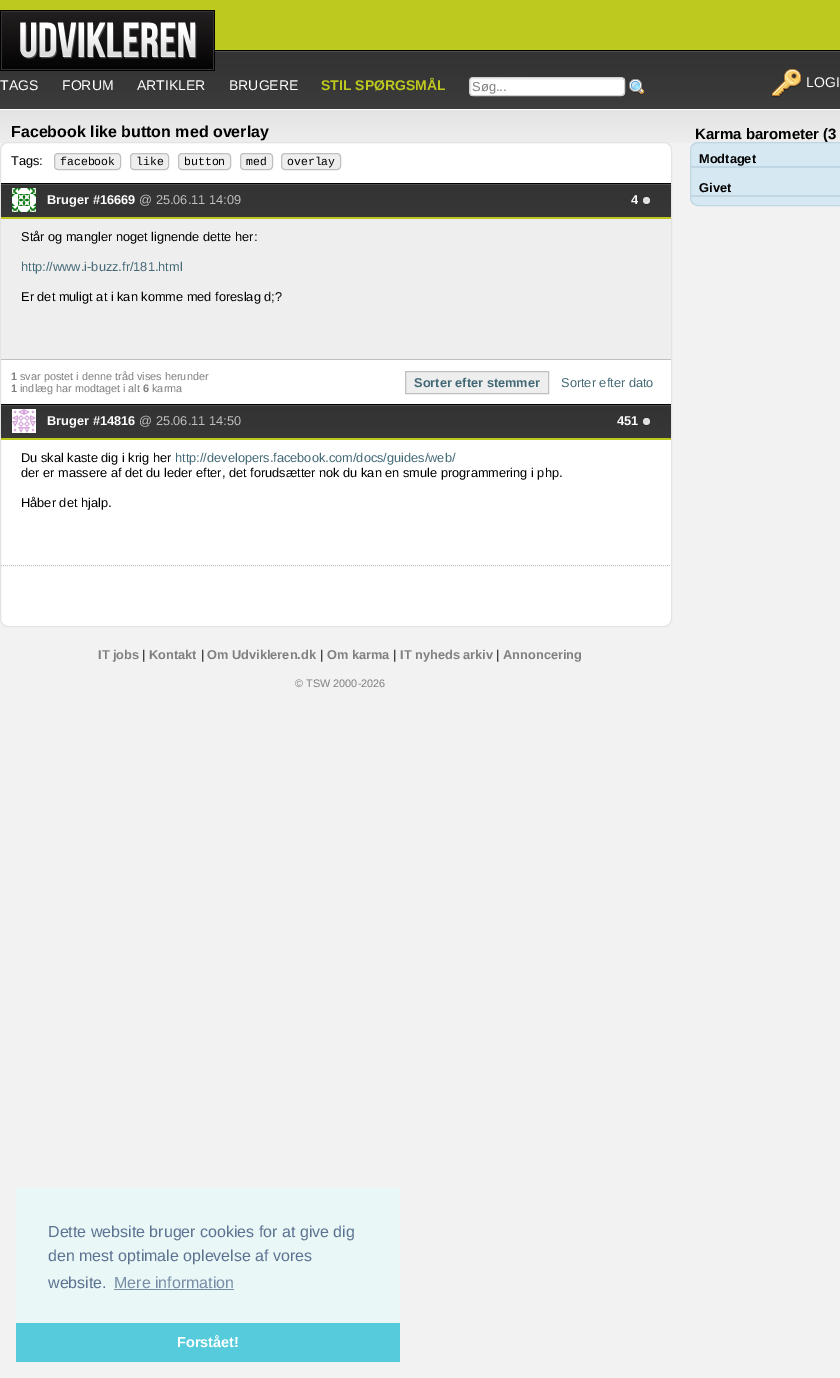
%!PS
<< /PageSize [840 1378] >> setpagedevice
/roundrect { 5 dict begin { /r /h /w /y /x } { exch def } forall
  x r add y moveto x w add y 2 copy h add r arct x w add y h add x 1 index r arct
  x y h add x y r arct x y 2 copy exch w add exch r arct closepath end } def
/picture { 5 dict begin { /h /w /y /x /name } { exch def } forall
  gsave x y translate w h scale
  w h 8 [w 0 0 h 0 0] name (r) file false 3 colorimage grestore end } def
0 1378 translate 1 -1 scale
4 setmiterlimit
0.949 setgray
0 0 840 1378 rectfill
(img1.rgb) 0 50 840 59 picture
0.741 0.788 0.122 setrgbcolor
0 0 840 50 rectfill
(img2.rgb) 0 10 215 61 picture
/LiberationSans-Regular [14 0 0 -14 0 0] selectfont
1 setgray
0 90 moveto (TAGS) show
62 90 moveto (FORUM) show
137 90 moveto (ARTIKLER) show
229 90 moveto (BRUGERE) show
/LiberationSans-Bold [14 0 0 -14 0 0] selectfont
0.741 0.788 0.122 setrgbcolor
321 90 moveto (STIL SPØRGSMÅL) show
(img3.rgb) 470 78 155 18 picture
0.812 setgray
469.5 77.5 155 18 3.5 roundrect stroke
/LiberationSans-Regular [13 0 0 -13 0 0] selectfont
0.502 setgray
472 91 moveto (Søg...) show
(img4.rgb) 629 79 15 16 picture
(img5.rgb) 771 69 31 29 picture
/LiberationSans-Regular [14 0 0 -14 0 0] selectfont
1 setgray
806 87 moveto (LOGI) show
(img6.rgb) 0 109 840 34 picture
/LiberationSans-Bold [16 0 0 -16 0 0] selectfont
0 setgray
11 137 moveto (Facebook like button med overlay) show
1 setgray
0.5 142.5 671 484 7.5 roundrect gsave fill grestore
0.89 setgray
stroke
/LiberationSans-Regular [12.8 0 0 -12.8 0 0] selectfont
0 setgray
11 165 moveto (Tags:) show
0.933 setgray
54.5 153.5 66 16 3.5 roundrect gsave fill grestore
0.753 setgray
stroke
/LiberationMono-Regular [11.5 0 0 -11.5 0 0] selectfont
0 setgray
60 165 moveto (facebook) show
0.933 setgray
130.5 153.5 38 16 3.5 roundrect gsave fill grestore
0.753 setgray
stroke
0 setgray
136 165 moveto (like) show
0.933 setgray
178.5 153.5 52 16 3.5 roundrect gsave fill grestore
0.753 setgray
stroke
0 setgray
184 165 moveto (button) show
0.933 setgray
240.5 153.5 32 16 3.5 roundrect gsave fill grestore
0.753 setgray
stroke
0 setgray
246 165 moveto (med) show
0.933 setgray
281.5 153.5 59 16 3.5 roundrect gsave fill grestore
0.753 setgray
stroke
0 setgray
287 165 moveto (overlay) show
(img7.rgb) 1 183 670 34 picture
0.741 0.788 0.122 setrgbcolor
1 217 670 2 rectfill
(img8.rgb) 12 188 24 24 picture
/LiberationSans-Bold [12.8 0 0 -12.8 0 0] selectfont
1 setgray
47 204 moveto (Bruger #16669) show
/LiberationSans-Regular [12.8 0 0 -12.8 0 0] selectfont
0.753 setgray
139 204 moveto (@ 25.06.11 14:09) show
/LiberationSans-Bold [12.8 0 0 -12.8 0 0] selectfont
1 setgray
631 204 moveto (4) show
(img9.rgb) 643 197 7 8 picture
0.933 setgray
1 219 670 140 rectfill
0.753 setgray
1 359 670 1 rectfill
/LiberationSans-Regular [12.8 0 0 -12.8 0 0] selectfont
0 setgray
21 241 moveto (Står og mangler noget lignende dette her:) show
0.263 0.412 0.463 setrgbcolor
21 271 moveto (http://www.i-buzz.fr/181.html) show
0 setgray
21 301 moveto (Er det muligt at i kan komme med foreslag d;?) show
/LiberationSans-Bold [10.9 0 0 -10.9 0 0] selectfont
0.502 setgray
11 380 moveto (1) show
/LiberationSans-Regular [10.9 0 0 -10.9 0 0] selectfont
20 380 moveto (svar postet i denne tråd vises herunder) show
/LiberationSans-Bold [10.9 0 0 -10.9 0 0] selectfont
11 392 moveto (1) show
/LiberationSans-Regular [10.9 0 0 -10.9 0 0] selectfont
20 392 moveto (indlæg har modtaget i alt) show
/LiberationSans-Bold [10.9 0 0 -10.9 0 0] selectfont
143 392 moveto (6) show
/LiberationSans-Regular [10.9 0 0 -10.9 0 0] selectfont
152 392 moveto (karma) show
0.933 setgray
newpath 405.5 371.5 moveto 548.5 371.5 lineto 548.5 393.5 lineto 405.5 393.5 lineto closepath gsave fill grestore
0.753 setgray
stroke
/LiberationSans-Bold [12.8 0 0 -12.8 0 0] selectfont
0.263 0.412 0.463 setrgbcolor
414 387 moveto (Sorter efter stemmer) show
/LiberationSans-Regular [12.8 0 0 -12.8 0 0] selectfont
561 387 moveto (Sorter efter dato) show
(img7.rgb) 1 404 670 34 picture
0.741 0.788 0.122 setrgbcolor
1 438 670 2 rectfill
(img10.rgb) 12 409 24 24 picture
/LiberationSans-Bold [12.8 0 0 -12.8 0 0] selectfont
1 setgray
47 425 moveto (Bruger #14816) show
/LiberationSans-Regular [12.8 0 0 -12.8 0 0] selectfont
0.753 setgray
139 425 moveto (@ 25.06.11 14:50) show
/LiberationSans-Bold [12.8 0 0 -12.8 0 0] selectfont
1 setgray
617 425 moveto (451) show
(img9.rgb) 643 418 7 8 picture
/LiberationSans-Regular [12.8 0 0 -12.8 0 0] selectfont
0 setgray
21 462 moveto (Du skal kaste dig i krig her) show
0.263 0.412 0.463 setrgbcolor
175 462 moveto (http://developers.facebook.com/docs/guides/web/) show
0 setgray
21 477 moveto (der er massere af det du leder efter, det forudsætter nok du kan en smule programmering i php.) show
21 507 moveto (Håber det hjalp.) show
0.753 setgray
[1 1] 0 setdash
newpath 1 565.5 moveto 671 565.5 lineto stroke
0.839 0.91 0.949 setrgbcolor
690.5 142.5 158 63 7.5 roundrect gsave fill grestore
0.753 0.839 0.886 setrgbcolor
[] 0 setdash
stroke
/LiberationSans-Bold [15 0 0 -15 0 0] selectfont
0 setgray
695 139 moveto (Karma barometer \(3) show
0.753 0.839 0.886 setrgbcolor
691 166 149 2 rectfill
/LiberationSans-Bold [12.8 0 0 -12.8 0 0] selectfont
0 setgray
699 163 moveto (Modtaget) show
0.753 0.839 0.886 setrgbcolor
691 195 149 2 rectfill
0 setgray
699 192 moveto (Givet) show
0.502 setgray
98 659 moveto (IT jobs) show
/LiberationSans-Regular [12.8 0 0 -12.8 0 0] selectfont
0 setgray
142 659 moveto (|) show
/LiberationSans-Bold [12.8 0 0 -12.8 0 0] selectfont
0.502 setgray
149 659 moveto (Kontakt) show
/LiberationSans-Regular [12.8 0 0 -12.8 0 0] selectfont
0 setgray
201 659 moveto (|) show
/LiberationSans-Bold [12.8 0 0 -12.8 0 0] selectfont
0.502 setgray
207 659 moveto (Om Udvikleren.dk) show
/LiberationSans-Regular [12.8 0 0 -12.8 0 0] selectfont
0 setgray
320 659 moveto (|) show
/LiberationSans-Bold [12.8 0 0 -12.8 0 0] selectfont
0.502 setgray
327 659 moveto (Om karma) show
/LiberationSans-Regular [12.8 0 0 -12.8 0 0] selectfont
0 setgray
393 659 moveto (|) show
/LiberationSans-Bold [12.8 0 0 -12.8 0 0] selectfont
0.502 setgray
400 659 moveto (IT nyheds arkiv) show
/LiberationSans-Regular [12.8 0 0 -12.8 0 0] selectfont
0 setgray
496 659 moveto (|) show
/LiberationSans-Bold [12.8 0 0 -12.8 0 0] selectfont
0.502 setgray
503 659 moveto (Annoncering) show
/LiberationSans-Regular [10.9 0 0 -10.9 0 0] selectfont
295 687 moveto (© TSW 2000-2026) show
0.918 0.969 0.969 setrgbcolor
16 1188 384 135 rectfill
/LiberationSans-Regular [16 0 0 -16 0 0] selectfont
0.361 0.447 0.569 setrgbcolor
48 1237 moveto (Dette website bruger cookies for at give dig) show
48 1261 moveto (den mest optimale oplevelse af vores) show
48 1288 moveto (website.) show
0.471 0.553 0.647 setrgbcolor
114 1288 moveto (Mere information) show
114 1289 120 1 rectfill
0.337 0.796 0.859 setrgbcolor
16 1323 384 39 rectfill
/LiberationSans-Bold [14.5 0 0 -14.5 0 0] selectfont
1 setgray
177 1347 moveto (Forstået!) show
showpage
